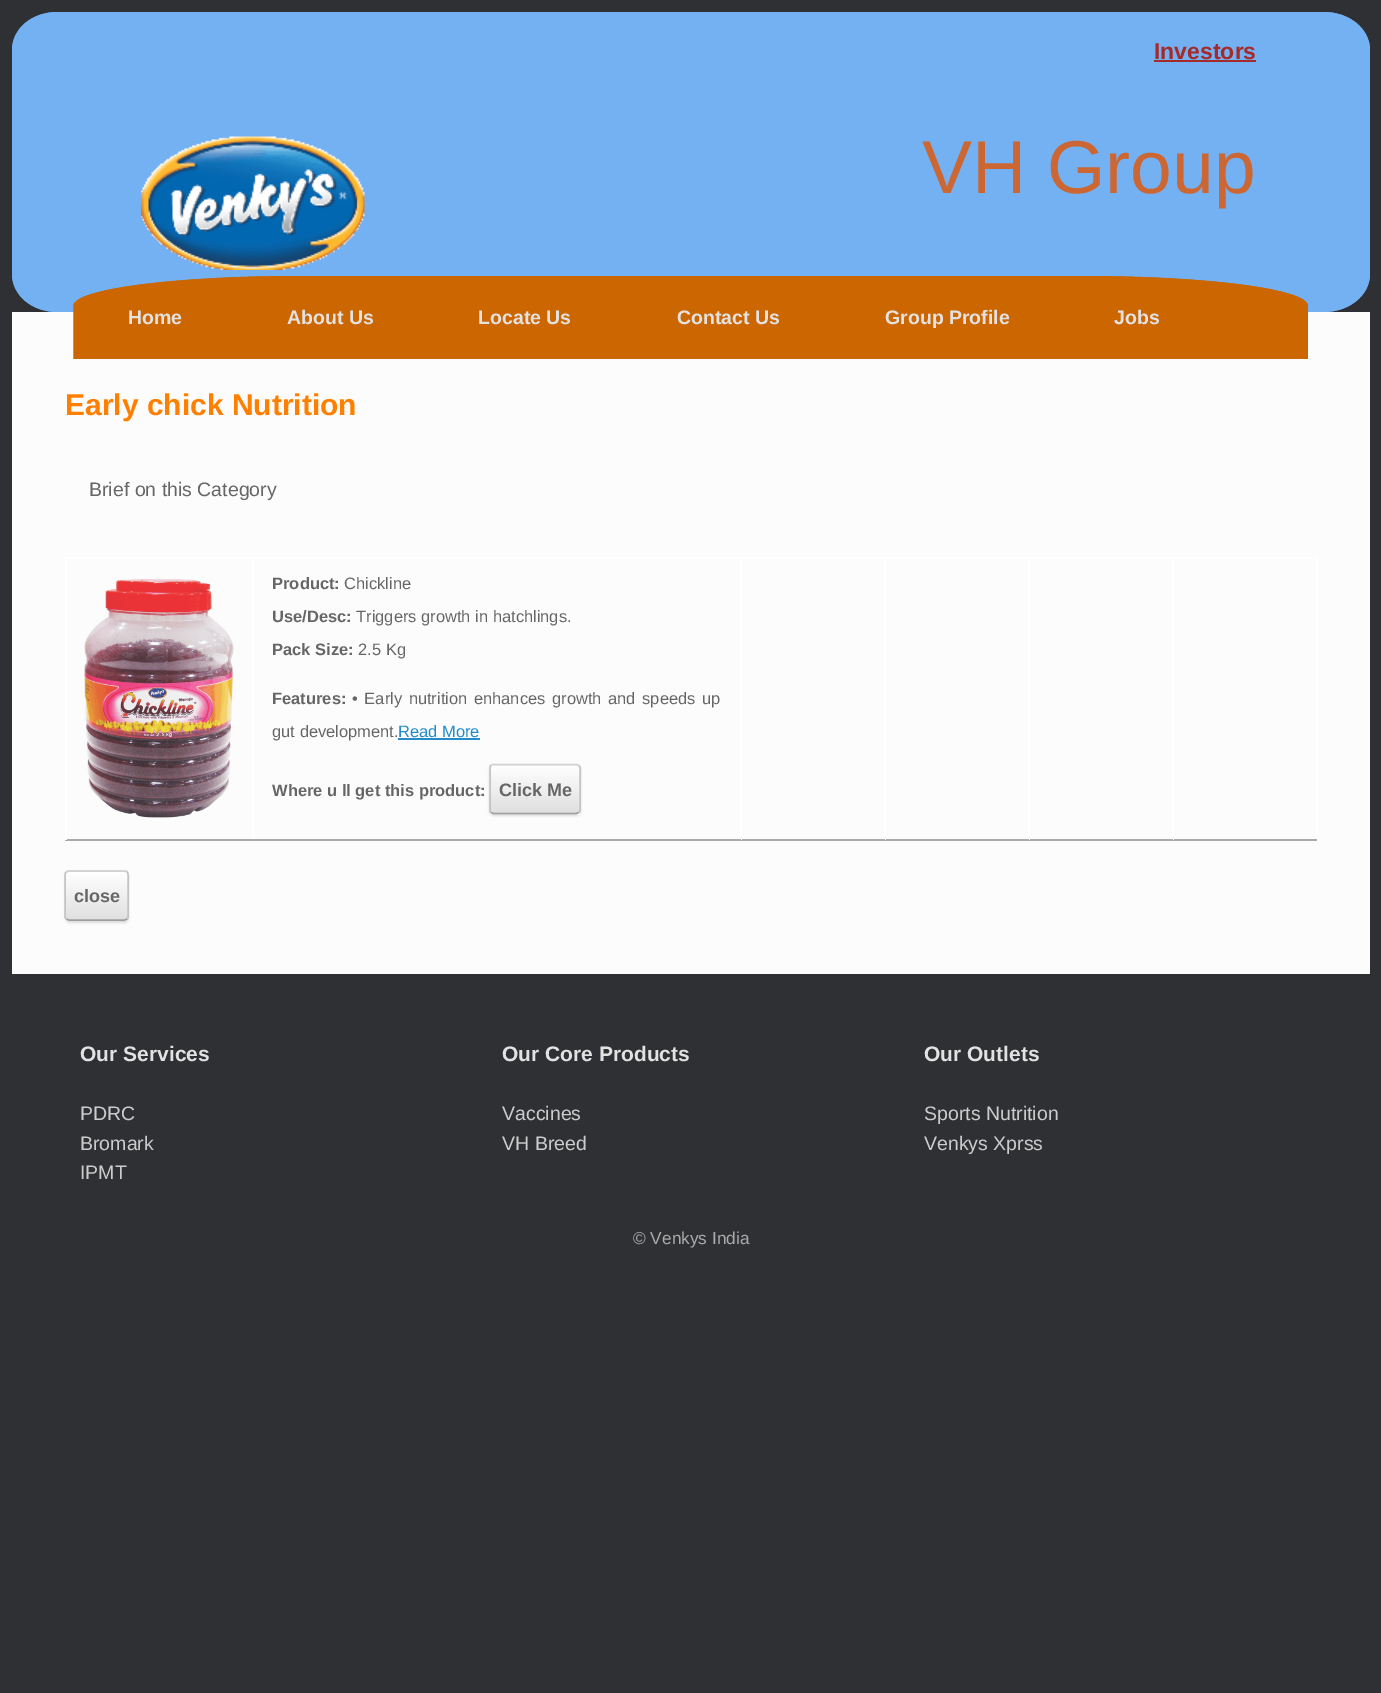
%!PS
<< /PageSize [1381 1693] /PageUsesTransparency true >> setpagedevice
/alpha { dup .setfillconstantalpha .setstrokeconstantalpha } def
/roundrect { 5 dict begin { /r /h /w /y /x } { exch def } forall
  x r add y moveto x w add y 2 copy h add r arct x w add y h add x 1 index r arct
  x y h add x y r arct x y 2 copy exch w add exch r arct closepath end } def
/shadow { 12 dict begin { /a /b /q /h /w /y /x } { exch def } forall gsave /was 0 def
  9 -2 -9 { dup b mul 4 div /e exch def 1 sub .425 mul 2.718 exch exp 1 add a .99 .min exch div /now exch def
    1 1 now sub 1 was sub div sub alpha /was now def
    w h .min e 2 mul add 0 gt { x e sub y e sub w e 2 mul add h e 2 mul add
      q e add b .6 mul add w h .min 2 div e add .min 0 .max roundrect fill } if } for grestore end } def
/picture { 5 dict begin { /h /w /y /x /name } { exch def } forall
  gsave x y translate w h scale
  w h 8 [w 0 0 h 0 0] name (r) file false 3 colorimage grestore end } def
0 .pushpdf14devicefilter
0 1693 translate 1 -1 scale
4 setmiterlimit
0.184 0.188 0.2 setrgbcolor
0 0 1381 1693 rectfill
0.451 0.694 0.949 setrgbcolor
newpath 57 12 moveto 1324 12 lineto 1349 12 1370 29 1370 50 curveto 1370 274 lineto 1370 295 1349 312 1324 312 curveto 57 312 lineto 32 312 12 295 12 274 curveto 12 50 lineto 12 29 32 12 57 12 curveto closepath fill
1.5 setlinewidth
newpath 57 13 moveto 1324.5 13 lineto 1349 13 1369 29 1369 49.5 curveto 1369 274.5 lineto 1369 295 1349 311 1324.5 311 curveto 57 311 lineto 32.5 311 13 295 13 274.5 curveto 13 49.5 lineto 13 29 32.5 13 57 13 curveto closepath stroke
/LiberationSans-Bold [23 0 0 -23 0 0] selectfont
0.647 0.165 0.165 setrgbcolor
1154 59 moveto (Investors) show
1154 60 102 2 rectfill
(img1.rgb) 141 136 224 134 picture
/LiberationSans-Regular [75 0 0 -75 0 0] selectfont
0.8 0.4 0.2 setrgbcolor
922 193 moveto (VH Group) show
0.988 setgray
12 312 1358 662 rectfill
0.8 0.4 0 setrgbcolor
newpath 298 276 moveto 1083 276 lineto 1207 276 1308 289 1308 306 curveto 1308 358 lineto 74 358 lineto 74 306 lineto 74 289 174 276 298 276 curveto closepath fill
newpath 298.5 277 moveto 1083 277 lineto 1207 277 1307 290 1307 306 curveto 1307 358 lineto 74 358 lineto 74 306 lineto 74 290 174.5 277 298.5 277 curveto closepath stroke
/LiberationSans-Bold [19.5 0 0 -19.5 0 0] selectfont
0.886 setgray
128 324 moveto (Home) show
287 324 moveto (About Us) show
478 324 moveto (Locate Us) show
677 324 moveto (Contact Us) show
885 324 moveto (Group Profile) show
1114 324 moveto (Jobs) show
/LiberationSans-Bold [30 0 0 -30 0 0] selectfont
1 0.502 0 setrgbcolor
65 415 moveto (Early chick Nutrition) show
/LiberationSans-Regular [19.5 0 0 -19.5 0 0] selectfont
0.4 setgray
89 496 moveto (Brief on this Category) show
1 setgray
1172 557 145 2 rectfill
1316 557 2 283 rectfill
0.663 setgray
1172 839 145 2 rectfill
1 setgray
1172 557 2 283 rectfill
1028 557 145 2 rectfill
0.663 setgray
1028 839 145 2 rectfill
1 setgray
1028 557 2 283 rectfill
884 557 145 2 rectfill
0.663 setgray
884 839 145 2 rectfill
1 setgray
884 557 2 283 rectfill
740 557 145 2 rectfill
0.663 setgray
740 839 145 2 rectfill
1 setgray
740 557 2 283 rectfill
252 557 489 2 rectfill
0.663 setgray
252 839 489 2 rectfill
1 setgray
252 557 2 283 rectfill
65 557 189 2 rectfill
0.663 setgray
65 839 189 2 rectfill
1 setgray
65 557 2 283 rectfill
(img2.rgb) 84 579 150 239 picture
/LiberationSans-Bold [16.5 0 0 -16.5 0 0] selectfont
0.4 setgray
272 589 moveto (Product:) show
/LiberationSans-Regular [16.5 0 0 -16.5 0 0] selectfont
344 589 moveto (Chickline) show
/LiberationSans-Bold [16.5 0 0 -16.5 0 0] selectfont
272 622 moveto (Use/Desc:) show
/LiberationSans-Regular [16.5 0 0 -16.5 0 0] selectfont
356 622 moveto (Triggers growth in hatchlings.) show
/LiberationSans-Bold [16.5 0 0 -16.5 0 0] selectfont
272 655 moveto (Pack Size:) show
/LiberationSans-Regular [16.5 0 0 -16.5 0 0] selectfont
358 655 moveto (2.5 Kg) show
/LiberationSans-Bold [16.5 0 0 -16.5 0 0] selectfont
272 704 moveto (Features:) show
/LiberationSans-Regular [16.5 0 0 -16.5 0 0] selectfont
352 704 moveto 2 0 32 (• Early nutrition enhances growth and speeds up) widthshow
272 737 moveto (gut development.) show
0.141 0.549 0.784 setrgbcolor
398 737 moveto (Read More) show
398 738 82 2 rectfill
/LiberationSans-Bold [16.5 0 0 -16.5 0 0] selectfont
0.4 setgray
272 796 moveto (Where u ll get this product:) show
0 setgray
489 765 92 51 5 1 0.12 shadow
gsave
489 764 92 51 5 roundrect clip newpath
gsave newpath 489 765 moveto 581 765 lineto 581 813 lineto 489 813 lineto closepath clip newpath
<< /ShadingType 2 /ColorSpace /DeviceRGB /Coords [491 813 491 765] /Extend [true true] /Function << /FunctionType 2 /Domain [0 1] /C0 [0.875 0.875 0.875] /C1 [1 1 1] /N 1 >> >> shfill grestore
gsave newpath 489 813 moveto 581 813 lineto 581 815 lineto 489 815 lineto closepath clip newpath
<< /ShadingType 2 /ColorSpace /DeviceRGB /Coords [491 861 491 813] /Extend [true true] /Function << /FunctionType 2 /Domain [0 1] /C0 [0.875 0.875 0.875] /C1 [1 1 1] /N 1 >> >> shfill grestore
grestore
0.824 setgray
newpath 491 765.5 moveto 493 764.5 lineto 576.5 764.5 lineto 578.5 765.5 lineto stroke
0.765 setgray
newpath 578.5 765.5 moveto 579.5 766 580 767 580 768 curveto 580 810 lineto 580 811 579.5 812 578.5 812.5 curveto stroke
0.624 setgray
newpath 578.5 812.5 moveto 576.5 813.5 lineto 493 813.5 lineto 491 812.5 lineto stroke
0.765 setgray
newpath 491 812.5 moveto 490 812 490 811 490 810 curveto 490 768 lineto 490 767 490 766 491 765.5 curveto stroke
/LiberationSans-Bold [18 0 0 -18 0 0] selectfont
0.4 setgray
499 796 moveto (Click Me) show
0 setgray
65 872 64 51 5 1 0.12 shadow
gsave
65 870 64 51 5 roundrect clip newpath
gsave newpath 65 870 moveto 129 870 lineto 129 872 lineto 65 872 lineto closepath clip newpath
<< /ShadingType 2 /ColorSpace /DeviceRGB /Coords [66 872 66 824] /Extend [true true] /Function << /FunctionType 2 /Domain [0 1] /C0 [0.875 0.875 0.875] /C1 [1 1 1] /N 1 >> >> shfill grestore
gsave newpath 65 872 moveto 129 872 lineto 129 920 lineto 65 920 lineto closepath clip newpath
<< /ShadingType 2 /ColorSpace /DeviceRGB /Coords [66 920 66 872] /Extend [true true] /Function << /FunctionType 2 /Domain [0 1] /C0 [0.875 0.875 0.875] /C1 [1 1 1] /N 1 >> >> shfill grestore
gsave newpath 65 920 moveto 129 920 lineto 129 921 lineto 65 921 lineto closepath clip newpath
<< /ShadingType 2 /ColorSpace /DeviceRGB /Coords [66 968 66 920] /Extend [true true] /Function << /FunctionType 2 /Domain [0 1] /C0 [0.875 0.875 0.875] /C1 [1 1 1] /N 1 >> >> shfill grestore
grestore
1 setgray
newpath 69 873 moveto 124 873 lineto 126 873 128 874 128 876 curveto 128 870 120 872 116 872 curveto 78 872 lineto 74 872 66 870 66 876 curveto 66 874 67 873 69 873 curveto closepath fill
0.824 setgray
newpath 66.5 872 moveto 68.5 871 lineto 125 871 lineto 127 872 lineto stroke
0.765 setgray
newpath 127 872 moveto 128 872.5 128 873.5 128 874.5 curveto 128 916.5 lineto 128 917.5 128 918.5 127 919 curveto stroke
0.624 setgray
newpath 127 919 moveto 125 920 lineto 68.5 920 lineto 66.5 919 lineto stroke
0.765 setgray
newpath 66.5 919 moveto 65.5 918.5 65 917.5 65 916.5 curveto 65 874.5 lineto 65 873.5 65.5 872.5 66.5 872 curveto stroke
0.4 setgray
74 902 moveto (close) show
/LiberationSans-Bold [21 0 0 -21 0 0] selectfont
0.886 setgray
80 1061 moveto (Our Services) show
/LiberationSans-Regular [19.5 0 0 -19.5 0 0] selectfont
0.8 setgray
80 1120 moveto (PDRC) show
80 1150 moveto (Bromark) show
80 1179 moveto (IPMT) show
/LiberationSans-Bold [21 0 0 -21 0 0] selectfont
0.886 setgray
502 1061 moveto (Our Core Products) show
/LiberationSans-Regular [19.5 0 0 -19.5 0 0] selectfont
0.8 setgray
502 1120 moveto (Vaccines) show
502 1150 moveto (VH Breed) show
/LiberationSans-Bold [21 0 0 -21 0 0] selectfont
0.886 setgray
924 1061 moveto (Our Outlets) show
/LiberationSans-Regular [19.5 0 0 -19.5 0 0] selectfont
0.8 setgray
924 1120 moveto (Sports Nutrition) show
924 1150 moveto (Venkys Xprss) show
/LiberationSans-Regular [17.25 0 0 -17.25 0 0] selectfont
0.667 setgray
633 1244 moveto (© Venkys India) show
.poppdf14devicefilter showpage
